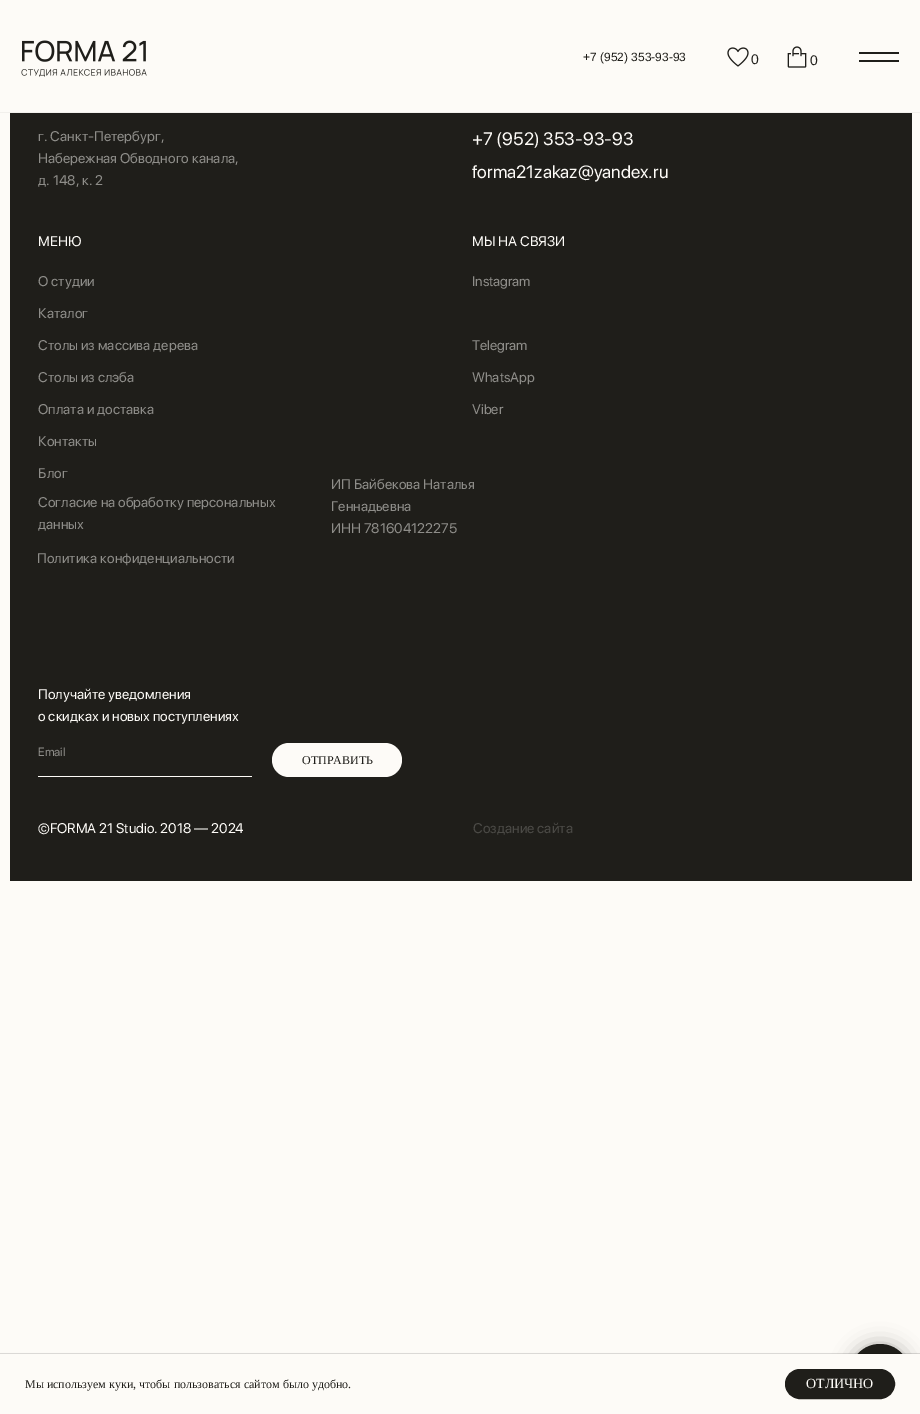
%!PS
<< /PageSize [920 1414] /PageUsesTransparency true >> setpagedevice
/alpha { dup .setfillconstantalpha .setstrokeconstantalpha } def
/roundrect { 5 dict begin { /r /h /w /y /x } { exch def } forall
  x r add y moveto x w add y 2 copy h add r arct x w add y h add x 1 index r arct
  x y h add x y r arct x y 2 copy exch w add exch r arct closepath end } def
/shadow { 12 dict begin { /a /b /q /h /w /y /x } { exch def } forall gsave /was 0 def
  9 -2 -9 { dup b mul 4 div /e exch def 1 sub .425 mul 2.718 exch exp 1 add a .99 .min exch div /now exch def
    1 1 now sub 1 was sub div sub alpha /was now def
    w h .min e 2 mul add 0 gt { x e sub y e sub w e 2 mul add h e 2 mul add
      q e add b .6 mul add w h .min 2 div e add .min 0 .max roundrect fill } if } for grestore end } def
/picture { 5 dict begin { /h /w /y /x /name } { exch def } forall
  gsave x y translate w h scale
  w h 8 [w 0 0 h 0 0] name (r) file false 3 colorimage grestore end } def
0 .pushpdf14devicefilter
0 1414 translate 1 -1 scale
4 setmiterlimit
0.992 0.984 0.969 setrgbcolor
0 0 920 1414 rectfill
(img1.rgb) 21 40 126 37 picture
/LiberationSans-Regular [12 0 0 -12 0 0] selectfont
0.122 0.118 0.102 setrgbcolor
583 61 moveto (+7 \(952\) 353-93-93) show
(img2.rgb) 727 47 22 20 picture
(img3.rgb) 787 46 20 22 picture
859 52 40 2 rectfill
/LiberationSans-Regular [14 0 0 -14 0 0] selectfont
751 64 moveto (0) show
810 65 moveto (0) show
859 60 40 2 rectfill
0.949 0.941 0.925 setrgbcolor
0 112 920 1 rectfill
0.122 0.118 0.102 setrgbcolor
10 113 902 768 rectfill
/SFProDisplay-Regular [14 0 0 -14 0 0] selectfont
0.557 0.553 0.537 setrgbcolor
38 141 moveto (г. Санкт-Петербург,) show
38 163 moveto (Набережная Обводного канала,) show
38 185 moveto (д. 148, к. 2) show
/SFProDisplay-Regular [18 0 0 -18 0 0] selectfont
0.992 0.984 0.969 setrgbcolor
472 145 moveto (+7 \(952\) 353-93-93) show
472 178 moveto (forma21zakaz@yandex.ru) show
/SFProDisplay-Regular [14 0 0 -14 0 0] selectfont
38 246 moveto (МЕНЮ) show
472 246 moveto (МЫ НА СВЯЗИ) show
0.557 0.553 0.537 setrgbcolor
38 286 moveto (О студии) show
472 286 moveto (Instagram) show
38 318 moveto (Каталог) show
38 350 moveto (Столы из массива дерева) show
472 350 moveto (Telegram) show
38 382 moveto (Столы из слэба) show
472 382 moveto (WhatsApp) show
38 414 moveto (Оплата и доставка) show
472 414 moveto (Viber) show
38 446 moveto (Контакты) show
38 478 moveto (Блог) show
38 507 moveto (Согласие на обработку персональных) show
38 529 moveto (данных) show
331 489 moveto (ИП Байбекова Наталья) show
331 511 moveto (Геннадьевна) show
331 533 moveto (ИНН 781604122275) show
37 563 moveto (Политика конфиденциальности) show
0.992 0.984 0.969 setrgbcolor
38 699 moveto (Получайте уведомления) show
38 721 moveto (о скидках и новых поступлениях) show
38 776 214 1 rectfill
/SFProDisplay-Regular [12 0 0 -12 0 0] selectfont
0.557 0.553 0.537 setrgbcolor
38 756 moveto (Email) show
0.992 0.984 0.969 setrgbcolor
272 743 130 34 17 roundrect fill
/LiberationSerif-Regular [12 0 0 -12 0 0] selectfont
0.122 0.118 0.102 setrgbcolor
302 764 moveto (ОТПРАВИТЬ) show
/SFProDisplay-Regular [14 0 0 -14 0 0] selectfont
0.992 0.984 0.969 setrgbcolor
38 833 moveto (©FORMA 21 Studio. 2018 — 2024) show
0.294 0.29 0.275 setrgbcolor
473 833 moveto (Создание сайта) show
0 setgray
850 1344 60 60 30 10 0.3 shadow
0.122 0.118 0.102 setrgbcolor
newpath 880 1374 30 0 360 arc closepath fill
0 setgray
0 1354 920 60 0 0.5 0.5 shadow
0.992 0.984 0.969 setrgbcolor
0 1354 920 60 rectfill
/LiberationSerif-Regular [12 0 0 -12 0 0] selectfont
0.122 0.118 0.102 setrgbcolor
25 1388 moveto (Мы используем куки, чтобы пользоваться сайтом было удобно.) show
785.5 1369.5 109 29 14.5 roundrect gsave fill grestore
stroke
/LiberationSerif-Regular [14 0 0 -14 0 0] selectfont
0.992 0.984 0.969 setrgbcolor
806 1388 moveto (ОТЛИЧНО) show
.poppdf14devicefilter showpage
